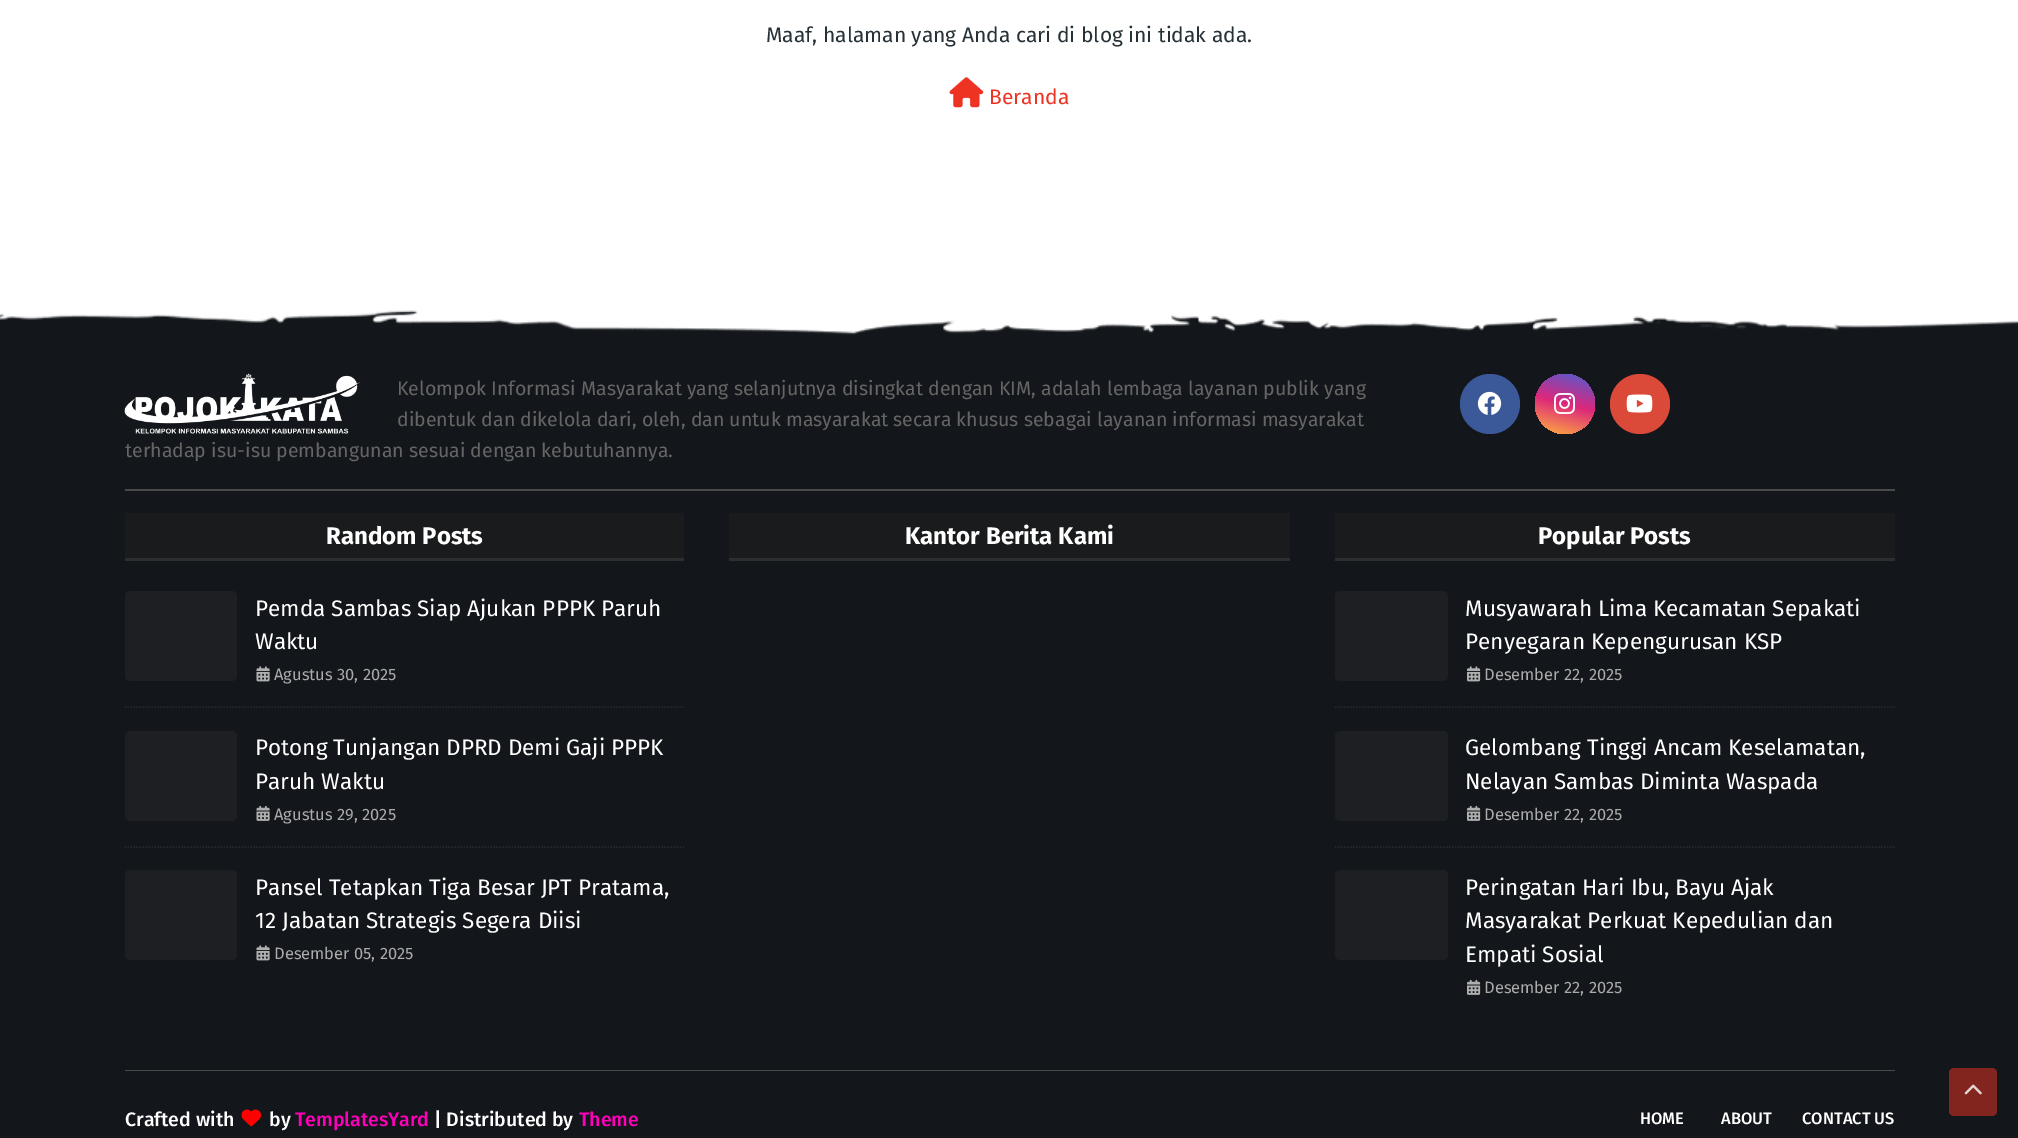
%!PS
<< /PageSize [2018 1138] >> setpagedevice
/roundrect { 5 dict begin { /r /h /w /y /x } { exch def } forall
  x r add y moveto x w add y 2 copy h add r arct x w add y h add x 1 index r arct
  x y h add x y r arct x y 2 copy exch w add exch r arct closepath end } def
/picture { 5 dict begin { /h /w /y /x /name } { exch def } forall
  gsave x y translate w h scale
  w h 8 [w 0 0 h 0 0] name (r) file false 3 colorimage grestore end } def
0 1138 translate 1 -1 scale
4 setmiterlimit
1 setgray
0 0 2018 1138 rectfill
/FiraSans-Regular [21 0 0 -21 0 0] selectfont
0.145 0.192 0.216 setrgbcolor
766 42 moveto (Maaf, halaman yang Anda cari di blog ini tidak ada.) show
(img1.rgb) 949 77 35 31 picture
0.933 0.2 0.133 setrgbcolor
989 104 moveto (Beranda) show
0.075 0.086 0.102 setrgbcolor
0 310 2018 828 rectfill
(img2.rgb) 0 306 2018 29 picture
0.29 setgray
125 489 1770 2 rectfill
(img3.rgb) 124 373 236 61 picture
/FiraSans-Regular [19.5 0 0 -19.5 0 0] selectfont
0.396 setgray
397 395 moveto (Kelompok Informasi Masyarakat yang selanjutnya disingkat dengan KIM, adalah lembaga layanan publik yang) show
397 426 moveto (dibentuk dan dikelola dari, oleh, dan untuk masyarakat secara khusus sebagai layanan informasi masyarakat) show
125 457 moveto (terhadap isu-isu pembangunan sesuai dengan kebutuhannya.) show
0.231 0.349 0.6 setrgbcolor
newpath 1490 404 30 0 360 arc closepath fill
(img4.rgb) 1477 391 25 24 picture
gsave newpath 1565 404 30 0 360 arc closepath clip newpath
<< /ShadingType 2 /ColorSpace /DeviceRGB /Coords [1555 439 1574 368] /Extend [true true] /Function << /FunctionType 3 /Domain [0 1] /Functions [<< /FunctionType 2 /Domain [0 1] /C0 [1 0.694 0.239] /C1 [0.867 0.153 0.482] /N 1 >> << /FunctionType 2 /Domain [0 1] /C0 [0.867 0.153 0.482] /C1 [0.302 0.369 0.831] /N 1 >>] /Bounds [0.5] /Encode [0 1 0 1] >> >> shfill grestore
(img5.rgb) 1554 393 21 21 picture
0.859 0.29 0.224 setrgbcolor
newpath 1640 404 30 0 360 arc closepath fill
(img6.rgb) 1626 394 27 19 picture
0.29 setgray
125 1070 1770 1 rectfill
0.102 0.106 0.114 setrgbcolor
125 513 559 45 rectfill
0.176 0.18 0.188 setrgbcolor
125 558 559 3 rectfill
/FiraSans-Bold [24 0 0 -24 0 0] selectfont
1 setgray
326 544 moveto (Random Posts) show
0.114 0.122 0.137 setrgbcolor
125 591 112 90 5 roundrect fill
/FiraSans-Regular [22.5 0 0 -22.5 0 0] selectfont
1 setgray
255 616 moveto (Pemda Sambas Siap Ajukan PPPK Paruh) show
255 649 moveto (Waktu) show
(img7.rgb) 256 666 14 16 picture
/FiraSans-Regular [16.5 0 0 -16.5 0 0] selectfont
0.667 setgray
274 680 moveto (Agustus 30, 2025) show
0.153 0.165 0.176 setrgbcolor
1.5 setlinewidth
[1.5 1.5] 0 setdash
newpath 124.5 707 moveto 684 707 lineto stroke
0.114 0.122 0.137 setrgbcolor
125 731 112 90 5 roundrect fill
/FiraSans-Regular [22.5 0 0 -22.5 0 0] selectfont
1 setgray
255 755 moveto (Potong Tunjangan DPRD Demi Gaji PPPK) show
255 789 moveto (Paruh Waktu) show
(img8.rgb) 256 805 14 16 picture
/FiraSans-Regular [16.5 0 0 -16.5 0 0] selectfont
0.667 setgray
274 820 moveto (Agustus 29, 2025) show
0.153 0.165 0.176 setrgbcolor
newpath 124.5 847 moveto 684 847 lineto stroke
0.114 0.122 0.137 setrgbcolor
125 870 112 90 5 roundrect fill
/FiraSans-Regular [22.5 0 0 -22.5 0 0] selectfont
1 setgray
255 895 moveto (Pansel Tetapkan Tiga Besar JPT Pratama,) show
255 928 moveto (12 Jabatan Strategis Segera Diisi) show
(img7.rgb) 256 945 14 16 picture
/FiraSans-Regular [16.5 0 0 -16.5 0 0] selectfont
0.667 setgray
274 959 moveto (Desember 05, 2025) show
0.102 0.106 0.114 setrgbcolor
729 513 561 45 rectfill
0.176 0.18 0.188 setrgbcolor
729 558 561 3 rectfill
/FiraSans-Bold [24 0 0 -24 0 0] selectfont
1 setgray
905 544 moveto (Kantor Berita Kami) show
0.102 0.106 0.114 setrgbcolor
1335 513 560 45 rectfill
0.176 0.18 0.188 setrgbcolor
1335 558 560 3 rectfill
1 setgray
1538 544 moveto (Popular Posts) show
0.114 0.122 0.137 setrgbcolor
1335 591 113 90 5 roundrect fill
/FiraSans-Regular [22.5 0 0 -22.5 0 0] selectfont
1 setgray
1465 616 moveto (Musyawarah Lima Kecamatan Sepakati) show
1465 649 moveto (Penyegaran Kepengurusan KSP) show
(img9.rgb) 1467 666 14 16 picture
/FiraSans-Regular [16.5 0 0 -16.5 0 0] selectfont
0.667 setgray
1484 680 moveto (Desember 22, 2025) show
0.153 0.165 0.176 setrgbcolor
newpath 1335 707 moveto 1894.5 707 lineto stroke
0.114 0.122 0.137 setrgbcolor
1335 731 113 90 5 roundrect fill
/FiraSans-Regular [22.5 0 0 -22.5 0 0] selectfont
1 setgray
1465 755 moveto (Gelombang Tinggi Ancam Keselamatan,) show
1465 789 moveto (Nelayan Sambas Diminta Waspada) show
(img10.rgb) 1467 805 14 16 picture
/FiraSans-Regular [16.5 0 0 -16.5 0 0] selectfont
0.667 setgray
1484 820 moveto (Desember 22, 2025) show
0.153 0.165 0.176 setrgbcolor
newpath 1335 847 moveto 1894.5 847 lineto stroke
0.114 0.122 0.137 setrgbcolor
1335 870 113 90 5 roundrect fill
/FiraSans-Regular [22.5 0 0 -22.5 0 0] selectfont
1 setgray
1465 895 moveto (Peringatan Hari Ibu, Bayu Ajak) show
1465 928 moveto (Masyarakat Perkuat Kepedulian dan) show
1465 962 moveto (Empati Sosial) show
(img10.rgb) 1467 979 14 16 picture
/FiraSans-Regular [16.5 0 0 -16.5 0 0] selectfont
0.667 setgray
1484 993 moveto (Desember 22, 2025) show
/FiraSans-Medium [19.5 0 0 -19.5 0 0] selectfont
1 setgray
125 1126 moveto (Crafted with) show
(img11.rgb) 241 1109 20 18 picture
269 1126 moveto (by) show
1 0 0.729 setrgbcolor
295 1126 moveto (TemplatesYard) show
1 setgray
434 1126 moveto (| Distributed by) show
1 0 0.729 setrgbcolor
579 1126 moveto (Theme) show
/FiraSans-Medium [16.5 0 0 -16.5 0 0] selectfont
1 setgray
1640 1124 moveto (HOME) show
1721 1124 moveto (ABOUT) show
1802 1124 moveto (CONTACT US) show
0.506 0.145 0.118 setrgbcolor
1949 1068 48 48 5 roundrect fill
(img12.rgb) 1964 1084 18 11 picture
showpage
